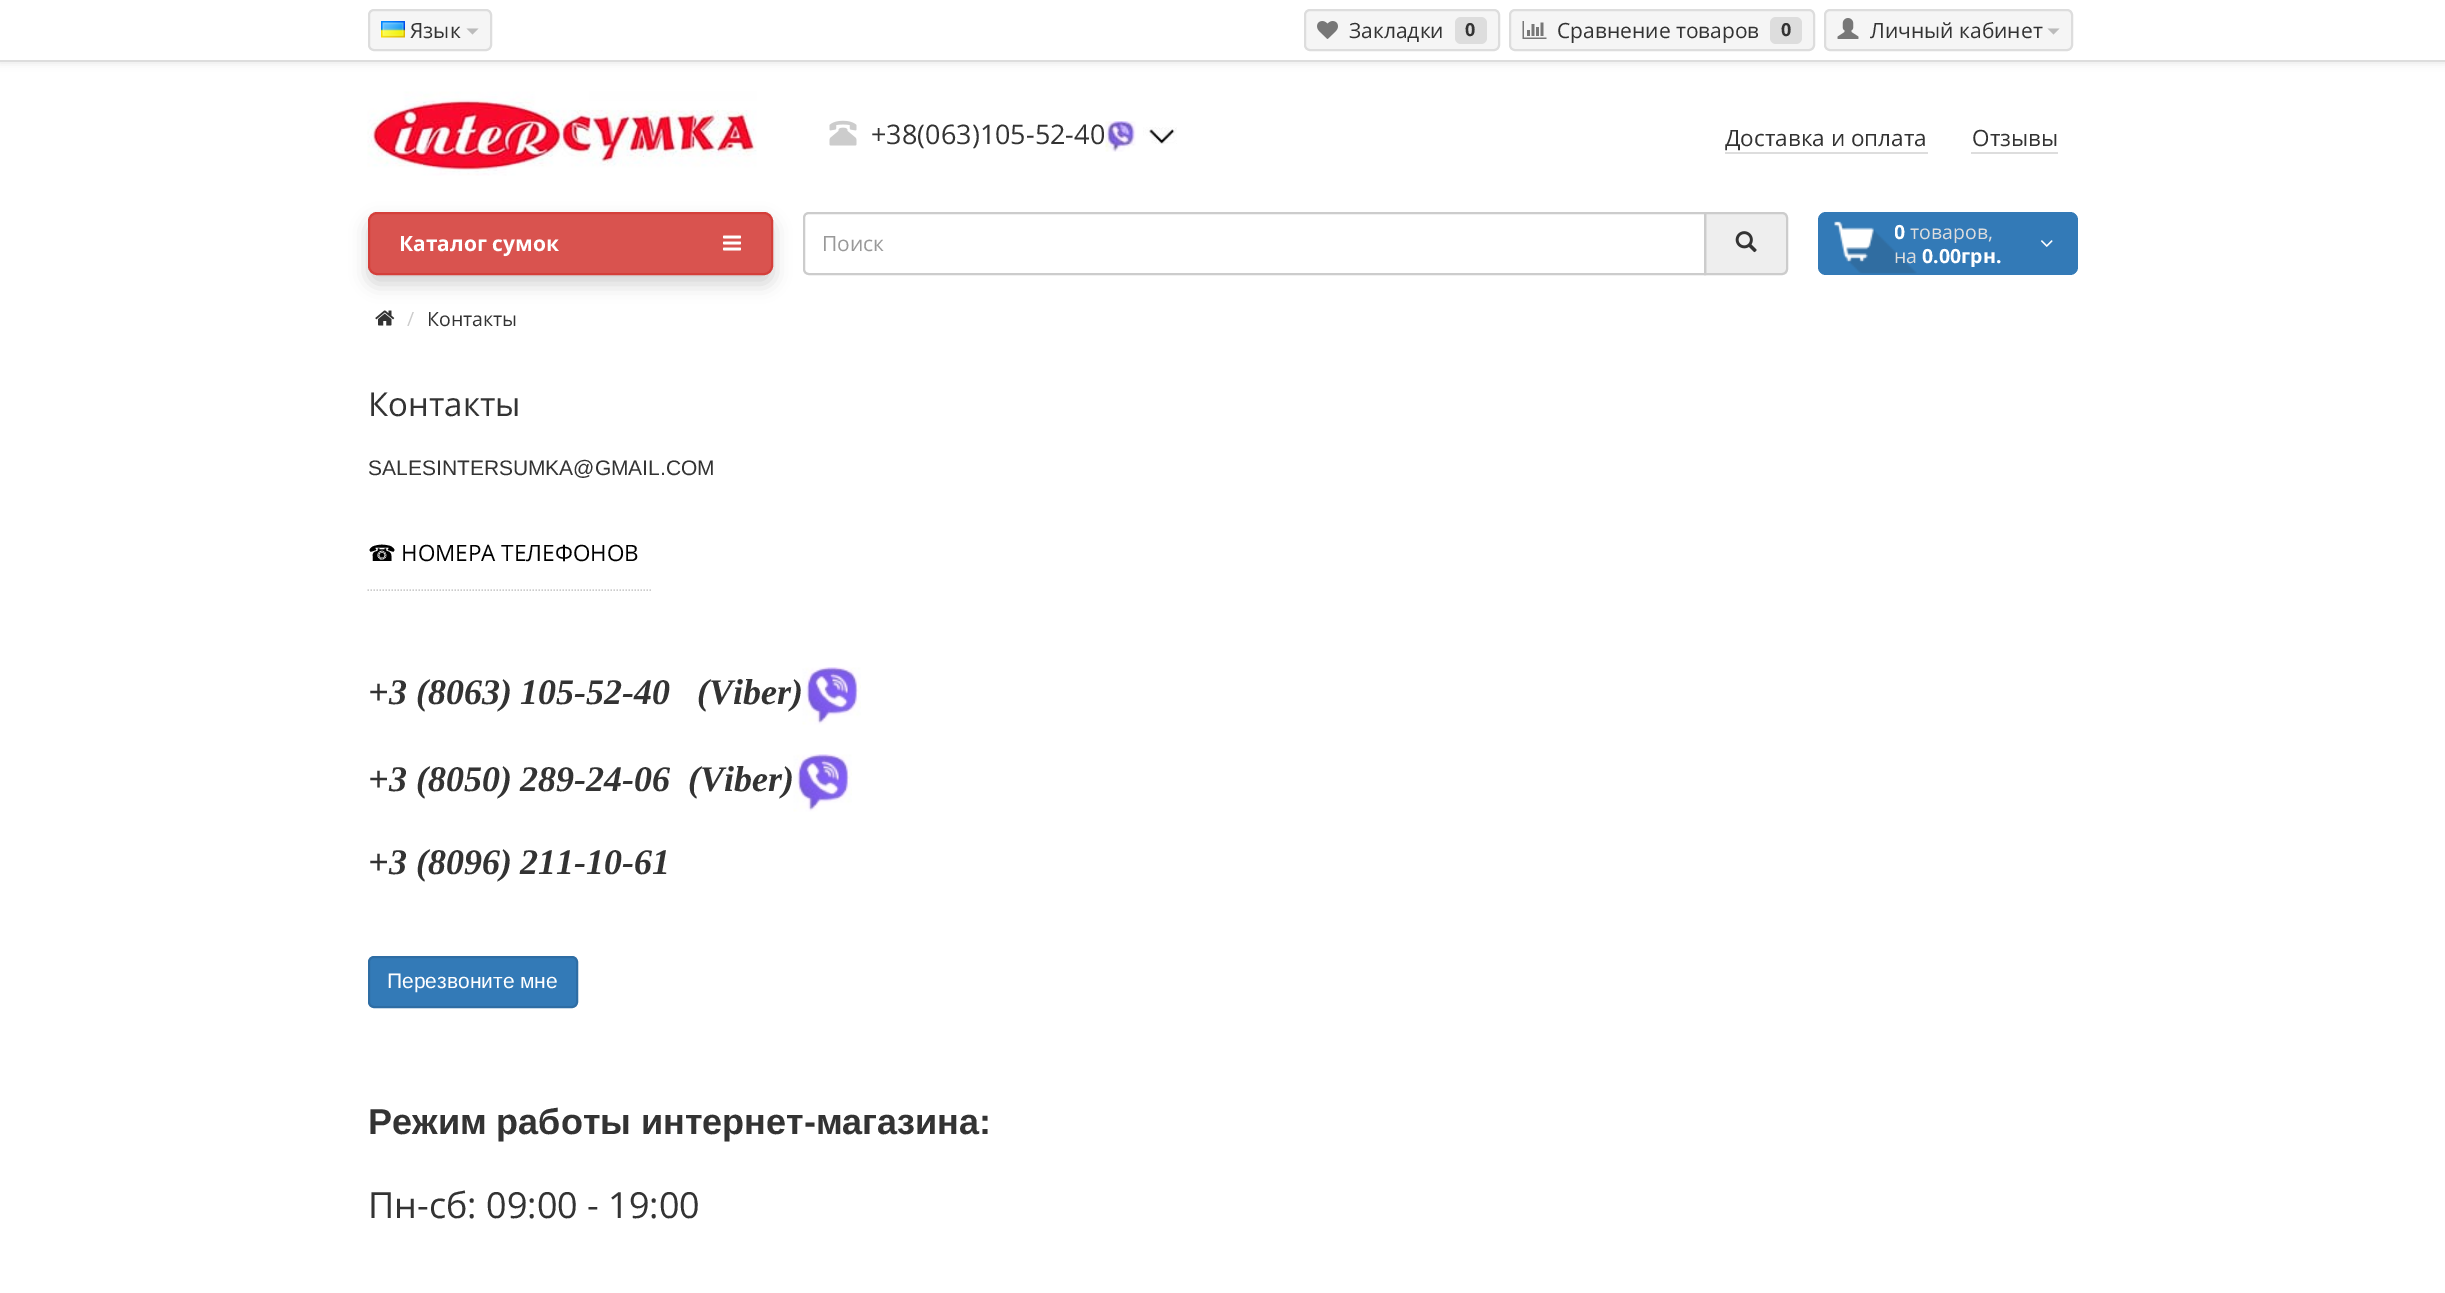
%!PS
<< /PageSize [2445 1293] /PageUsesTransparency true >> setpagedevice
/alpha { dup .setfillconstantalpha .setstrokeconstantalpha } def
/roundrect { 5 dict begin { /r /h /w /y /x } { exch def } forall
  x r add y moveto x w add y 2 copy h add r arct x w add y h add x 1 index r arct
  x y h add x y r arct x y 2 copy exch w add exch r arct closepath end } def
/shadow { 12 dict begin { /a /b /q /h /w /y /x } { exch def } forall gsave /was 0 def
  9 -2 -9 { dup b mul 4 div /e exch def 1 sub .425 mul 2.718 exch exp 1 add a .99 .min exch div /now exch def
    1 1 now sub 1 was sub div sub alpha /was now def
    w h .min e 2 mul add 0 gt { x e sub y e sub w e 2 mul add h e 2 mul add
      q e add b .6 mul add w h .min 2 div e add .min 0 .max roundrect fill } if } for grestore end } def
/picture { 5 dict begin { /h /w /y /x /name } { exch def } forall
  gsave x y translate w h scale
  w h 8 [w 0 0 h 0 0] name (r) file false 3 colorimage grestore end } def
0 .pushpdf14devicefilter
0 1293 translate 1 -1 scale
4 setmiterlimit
1 setgray
0 0 2445 1293 rectfill
0 setgray
0 2 2445 61 0 4 0.1 shadow
1 setgray
0 0 2445 60 rectfill
0.867 setgray
0 60 2445 2 rectfill
0.961 setgray
369 10 122 40 5 roundrect gsave fill grestore
0.867 setgray
2 setlinewidth
stroke
(img1.rgb) 381 21 24 17 picture
/OpenSans-Regular [21 0 0 -21 0 0] selectfont
0.2 setgray
410 38 moveto (Язык) show
0.733 setgray
newpath 466.5 28.5 moveto 478.5 28.5 lineto 472.5 34.5 lineto closepath fill
0.961 setgray
1305 10 194 40 5 roundrect gsave fill grestore
0.867 setgray
stroke
(img2.rgb) 1317 21 21 18 picture
0.2 setgray
1349 38 moveto (Закладки) show
0.867 setgray
1455 17 32 27 6 roundrect fill
/OpenSans-Bold [18 0 0 -18 0 0] selectfont
0.2 setgray
1465 36 moveto (0) show
0.961 setgray
1510 10 304 40 5 roundrect gsave fill grestore
0.867 setgray
stroke
(img3.rgb) 1522 21 25 18 picture
/OpenSans-Regular [21 0 0 -21 0 0] selectfont
0.2 setgray
1557 38 moveto (Сравнение товаров) show
0.867 setgray
1770 17 32 27 6 roundrect fill
/OpenSans-Bold [18 0 0 -18 0 0] selectfont
0.2 setgray
1781 36 moveto (0) show
0.961 setgray
1825 10 247 40 5 roundrect gsave fill grestore
0.867 setgray
stroke
(img4.rgb) 1837 18 22 21 picture
/OpenSans-Regular [21 0 0 -21 0 0] selectfont
0.2 setgray
1870 38 moveto (Личный кабинет) show
0.733 setgray
newpath 2047.5 28.5 moveto 2059.5 28.5 lineto 2053.5 34.5 lineto closepath fill
(img5.rgb) 367 91 390 85 picture
(img6.rgb) 829 120 28 26 picture
/OpenSans-Regular [27 0 0 -27 0 0] selectfont
0.2 setgray
871 144 moveto (+38\(063\)105-52-40) show
(img7.rgb) 1105 121 31 31 picture
(img8.rgb) 1143 127 34 17 picture
/OpenSans-Regular [22.5 0 0 -22.5 0 0] selectfont
1725 146 moveto (Доставка и оплата) show
0.867 setgray
1725 152 203 2 rectfill
0.2 setgray
1972 146 moveto (Отзывы) show
0.867 setgray
1971 152 87 2 rectfill
(img13.rgb) 375 310 20 16 picture
0 setgray
368 221 405 63 9 9 0.18 shadow
0.851 0.325 0.31 setrgbcolor
369 213 403 61 8 roundrect gsave fill grestore
0.831 0.247 0.227 setrgbcolor
stroke
/OpenSans-Bold [21 0 0 -21 0 0] selectfont
1 setgray
399 251 moveto (Каталог сумок) show
(img9.rgb) 723 235 18 16 picture
0.933 setgray
newpath 1705 213 moveto 1782 213 lineto 1785 213 1787 215 1787 218 curveto 1787 269 lineto 1787 272 1785 274 1782 274 curveto 1705 274 lineto closepath gsave fill grestore
0.8 setgray
stroke
1 setgray
newpath 809 213 moveto 1705 213 lineto 1705 274 lineto 809 274 lineto 806 274 804 272 804 269 curveto 804 218 lineto 804 215 806 213 809 213 curveto closepath gsave fill grestore
0.8 setgray
stroke
/OpenSans-Regular [21 0 0 -21 0 0] selectfont
0.6 setgray
822 251 moveto (Поиск) show
(img10.rgb) 1735 231 22 22 picture
0.2 0.478 0.718 setrgbcolor
1818 212 260 63 8 roundrect fill
(img11.rgb) 1834 221 83 53 picture
gsave
1895 219 136 24 rectclip
/OpenSans-Bold [19.5 0 0 -19.5 0 0] selectfont
1 setgray
1894 239 moveto (0) show
/OpenSans-Regular [19.5 0 0 -19.5 0 0] selectfont
0.867 setgray
1910 239 moveto (товаров,) show
grestore
/OpenSans-Regular [19.5 0 0 -19.5 0 0] selectfont
0.867 setgray
1894 263 moveto (на) show
gsave
1895 243 136 24 rectclip
/OpenSans-Bold [19.5 0 0 -19.5 0 0] selectfont
1 setgray
1922 263 moveto (0.00грн.) show
grestore
(img12.rgb) 2041 240 12 7 picture
0.8 setgray
407 326 moveto (/) show
0.2 setgray
427 326 moveto (Контакты) show
/OpenSans-Regular [33 0 0 -33 0 0] selectfont
368 416 moveto (Контакты) show
/LiberationSans-Regular [21 0 0 -21 0 0] selectfont
368 475 moveto (SALESINTERSUMKA@GMAIL.COM) show
0.8 setgray
1.5 setlinewidth
[1.5 1.5] 0 setdash
newpath 367.5 590 moveto 652.5 590 lineto stroke
/DejaVuSans-Regular [22.5 0 0 -22.5 0 0] selectfont
0 setgray
368 561 moveto (☎) show
/OpenSans-Regular [22.5 0 0 -22.5 0 0] selectfont
401 561 moveto (НОМЕРА ТЕЛЕФОНОВ) show
/LiberationSerif-BoldItalic [36 0 0 -36 0 0] selectfont
0.2 setgray
368 704 moveto (+3 \(8063\) 105-52-40) show
697 704 moveto (\(Viber\)) show
(img14.rgb) 802 667 59 58 picture
368 791 moveto (+3 \(8050\) 289-24-06) show
688 791 moveto (\(Viber\)) show
(img14.rgb) 793 754 59 58 picture
368 874 moveto (+3 \(8096\) 211-10-61) show
0.2 0.478 0.718 setrgbcolor
369 957 208 50 5 roundrect gsave fill grestore
0.18 0.427 0.643 setrgbcolor
2 setlinewidth
[] 0 setdash
stroke
/LiberationSans-Regular [21 0 0 -21 0 0] selectfont
1 setgray
387 988 moveto (Перезвоните мне) show
/LiberationSans-Bold [36 0 0 -36 0 0] selectfont
0.2 setgray
368 1134 moveto (Режим работы интернет-магазина:) show
/OpenSans-Regular [36 0 0 -36 0 0] selectfont
368 1218 moveto (Пн-сб: 09:00 - 19:00) show
.poppdf14devicefilter showpage
